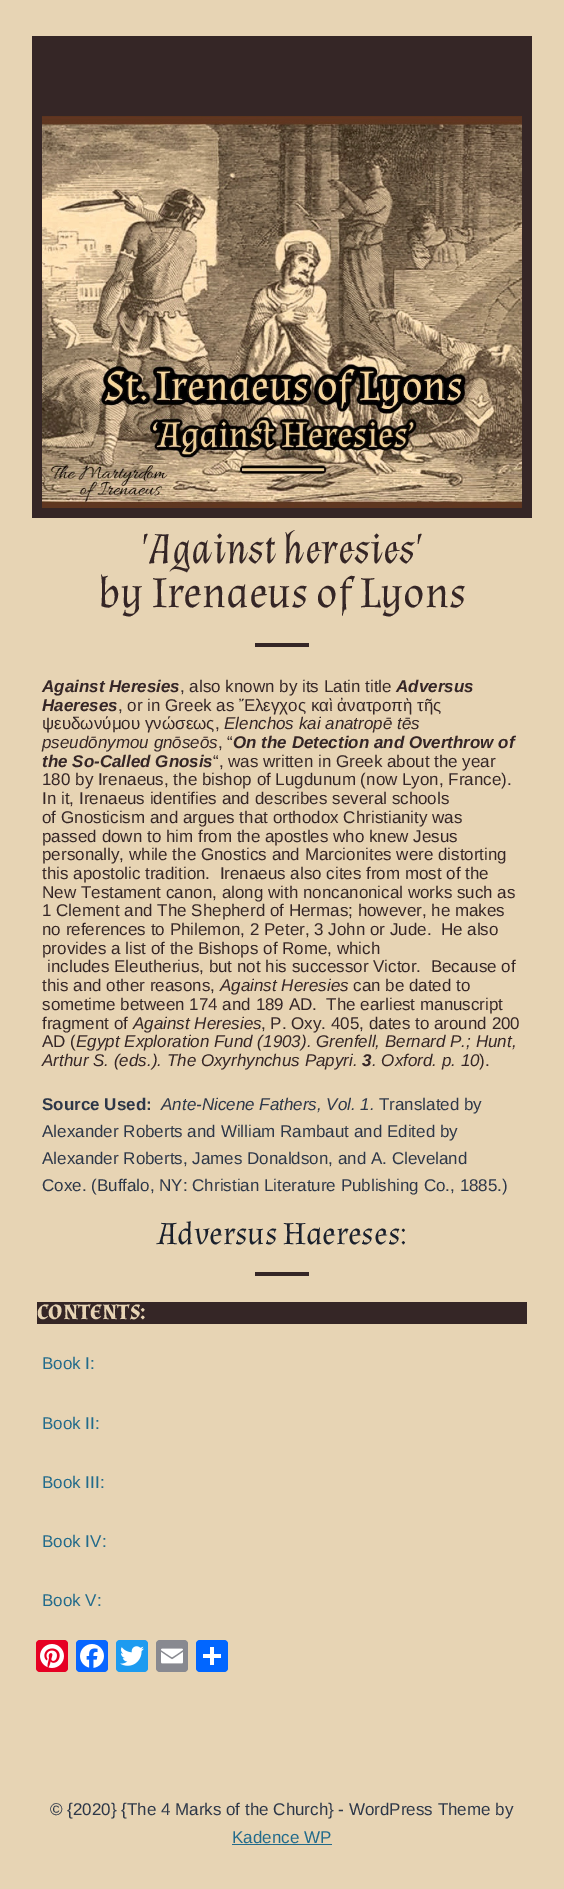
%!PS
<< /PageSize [564 1889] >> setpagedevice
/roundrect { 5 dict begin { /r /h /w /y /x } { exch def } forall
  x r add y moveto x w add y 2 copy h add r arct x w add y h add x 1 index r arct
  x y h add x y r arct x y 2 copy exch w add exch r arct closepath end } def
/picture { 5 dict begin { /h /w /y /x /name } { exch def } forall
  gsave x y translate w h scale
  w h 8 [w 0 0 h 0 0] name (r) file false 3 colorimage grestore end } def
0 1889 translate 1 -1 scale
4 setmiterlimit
0.906 0.831 0.706 setrgbcolor
0 0 564 1889 rectfill
0.208 0.149 0.149 setrgbcolor
32 36 500 482 rectfill
(img1.rgb) 42 116 480 392 picture
/Almendra-Italic [44 0 0 -44 0 0] selectfont
141 563 moveto ('Against heresies') show
/Almendra-Regular [44 0 0 -44 0 0] selectfont
98 607 moveto (by Irenaeus of Lyons) show
255 643 54 4 rectfill
/LiberationSans-BoldItalic [17 0 0 -17 0 0] selectfont
42 692 moveto (Against Heresies) show
/LiberationSans-Regular [17 0 0 -17 0 0] selectfont
180 692 moveto (, also known by its Latin title) show
/LiberationSans-BoldItalic [17 0 0 -17 0 0] selectfont
396 692 moveto (Adversus) show
42 711 moveto (Haereses) show
/LiberationSans-Regular [17 0 0 -17 0 0] selectfont
118 711 moveto (, or in Greek as Ἔλεγχος καὶ ἀνατροπὴ τῆς) show
42 729 moveto (ψευδωνύμου γνώσεως,) show
/LiberationSans-Italic [17 0 0 -17 0 0] selectfont
224 729 moveto (Elenchos kai anatropē tēs) show
42 748 moveto (pseudōnymou gnōseōs) show
/LiberationSans-Regular [17 0 0 -17 0 0] selectfont
218 748 moveto (, “) show
/LiberationSans-BoldItalic [17 0 0 -17 0 0] selectfont
233 748 moveto (On the Detection and Overthrow of) show
42 767 moveto (the So-Called Gnosis) show
/LiberationSans-Regular [17 0 0 -17 0 0] selectfont
213 767 moveto (“, was written in Greek about the year) show
42 785 moveto (180 by Irenaeus, the bishop of Lugdunum \(now Lyon, France\).) show
42 804 moveto (In it, Irenaeus identifies and describes several schools) show
42 823 moveto (of Gnosticism and argues that orthodox Christianity was) show
42 842 moveto (passed down to him from the apostles who knew Jesus) show
42 860 moveto (personally, while the Gnostics and Marcionites were distorting) show
42 879 moveto (this apostolic tradition.  Irenaeus also cites from most of the) show
42 898 moveto (New Testament canon, along with noncanonical works such as) show
42 916 moveto (1 Clement and The Shepherd of Hermas; however, he makes) show
42 935 moveto (no references to Philemon, 2 Peter, 3 John or Jude.  He also) show
42 954 moveto (provides a list of the Bishops of Rome, which) show
47 972 moveto (includes Eleutherius, but not his successor Victor.  Because of) show
42 991 moveto (this and other reasons,) show
/LiberationSans-Italic [17 0 0 -17 0 0] selectfont
220 991 moveto (Against Heresies) show
/LiberationSans-Regular [17 0 0 -17 0 0] selectfont
353 991 moveto (can be dated to) show
42 1010 moveto (sometime between 174 and 189 AD.  The earliest manuscript) show
42 1029 moveto (fragment of) show
/LiberationSans-Italic [17 0 0 -17 0 0] selectfont
133 1029 moveto (Against Heresies) show
/LiberationSans-Regular [17 0 0 -17 0 0] selectfont
261 1029 moveto (, P. Oxy. 405, dates to around 200) show
42 1047 moveto (AD \() show
/LiberationSans-Italic [17 0 0 -17 0 0] selectfont
76 1047 moveto (Egypt Exploration Fund \(1903\). Grenfell, Bernard P.; Hunt,) show
42 1066 moveto (Arthur S. \(eds.\). The Oxyrhynchus Papyri.) show
/LiberationSans-BoldItalic [17 0 0 -17 0 0] selectfont
362 1066 moveto (3) show
/LiberationSans-Italic [17 0 0 -17 0 0] selectfont
372 1066 moveto (. Oxford. p. 10) show
/LiberationSans-Regular [17 0 0 -17 0 0] selectfont
479 1066 moveto (\).) show
/LiberationSans-Bold [17 0 0 -17 0 0] selectfont
0.176 0.216 0.282 setrgbcolor
42 1110 moveto (Source Used:) show
/LiberationSans-Italic [17 0 0 -17 0 0] selectfont
161 1110 moveto (Ante-Nicene Fathers, Vol. 1.) show
/LiberationSans-Regular [17 0 0 -17 0 0] selectfont
379 1110 moveto (Translated by) show
42 1137 moveto (Alexander Roberts and William Rambaut and Edited by) show
42 1164 moveto (Alexander Roberts, James Donaldson, and A. Cleveland) show
42 1191 moveto (Coxe. \(Buffalo, NY: Christian Literature Publishing Co., 1885.\)) show
/Almendra-Regular [32 0 0 -32 0 0] selectfont
0.102 0.125 0.173 setrgbcolor
158 1244 moveto (Adversus Haereses:) show
0.208 0.149 0.149 setrgbcolor
255 1272 54 4 rectfill
37 1302 490 22 rectfill
/Almendra-Bold [22 0 0 -22 0 0] selectfont
0.906 0.831 0.706 setrgbcolor
37 1319 moveto (CONTENTS:) show
/LiberationSans-Regular [17 0 0 -17 0 0] selectfont
0.133 0.42 0.545 setrgbcolor
42 1369 moveto (Book I:) show
42 1429 moveto (Book II:) show
42 1488 moveto (Book III:) show
42 1547 moveto (Book IV:) show
42 1606 moveto (Book V:) show
0.902 0 0.137 setrgbcolor
36 1640 32 32 4 roundrect fill
(img2.rgb) 40 1644 24 24 picture
0.031 0.4 1 setrgbcolor
76 1640 32 32 4 roundrect fill
(img3.rgb) 80 1644 24 24 picture
0.114 0.608 0.941 setrgbcolor
116 1640 32 32 4 roundrect fill
(img4.rgb) 120 1646 24 20 picture
0.533 0.537 0.565 setrgbcolor
156 1640 32 32 4 roundrect fill
(img5.rgb) 161 1648 22 16 picture
0.004 0.4 1 setrgbcolor
196 1640 32 32 4 roundrect fill
1 setgray
210 1647 4 18 rectfill
203 1654 18 4 rectfill
0.176 0.216 0.282 setrgbcolor
50 1815 moveto (© {2020} {The 4 Marks of the Church} - WordPress Theme by) show
0.133 0.42 0.545 setrgbcolor
232 1843 moveto (Kadence WP) show
232 1844 100 1 rectfill
showpage
